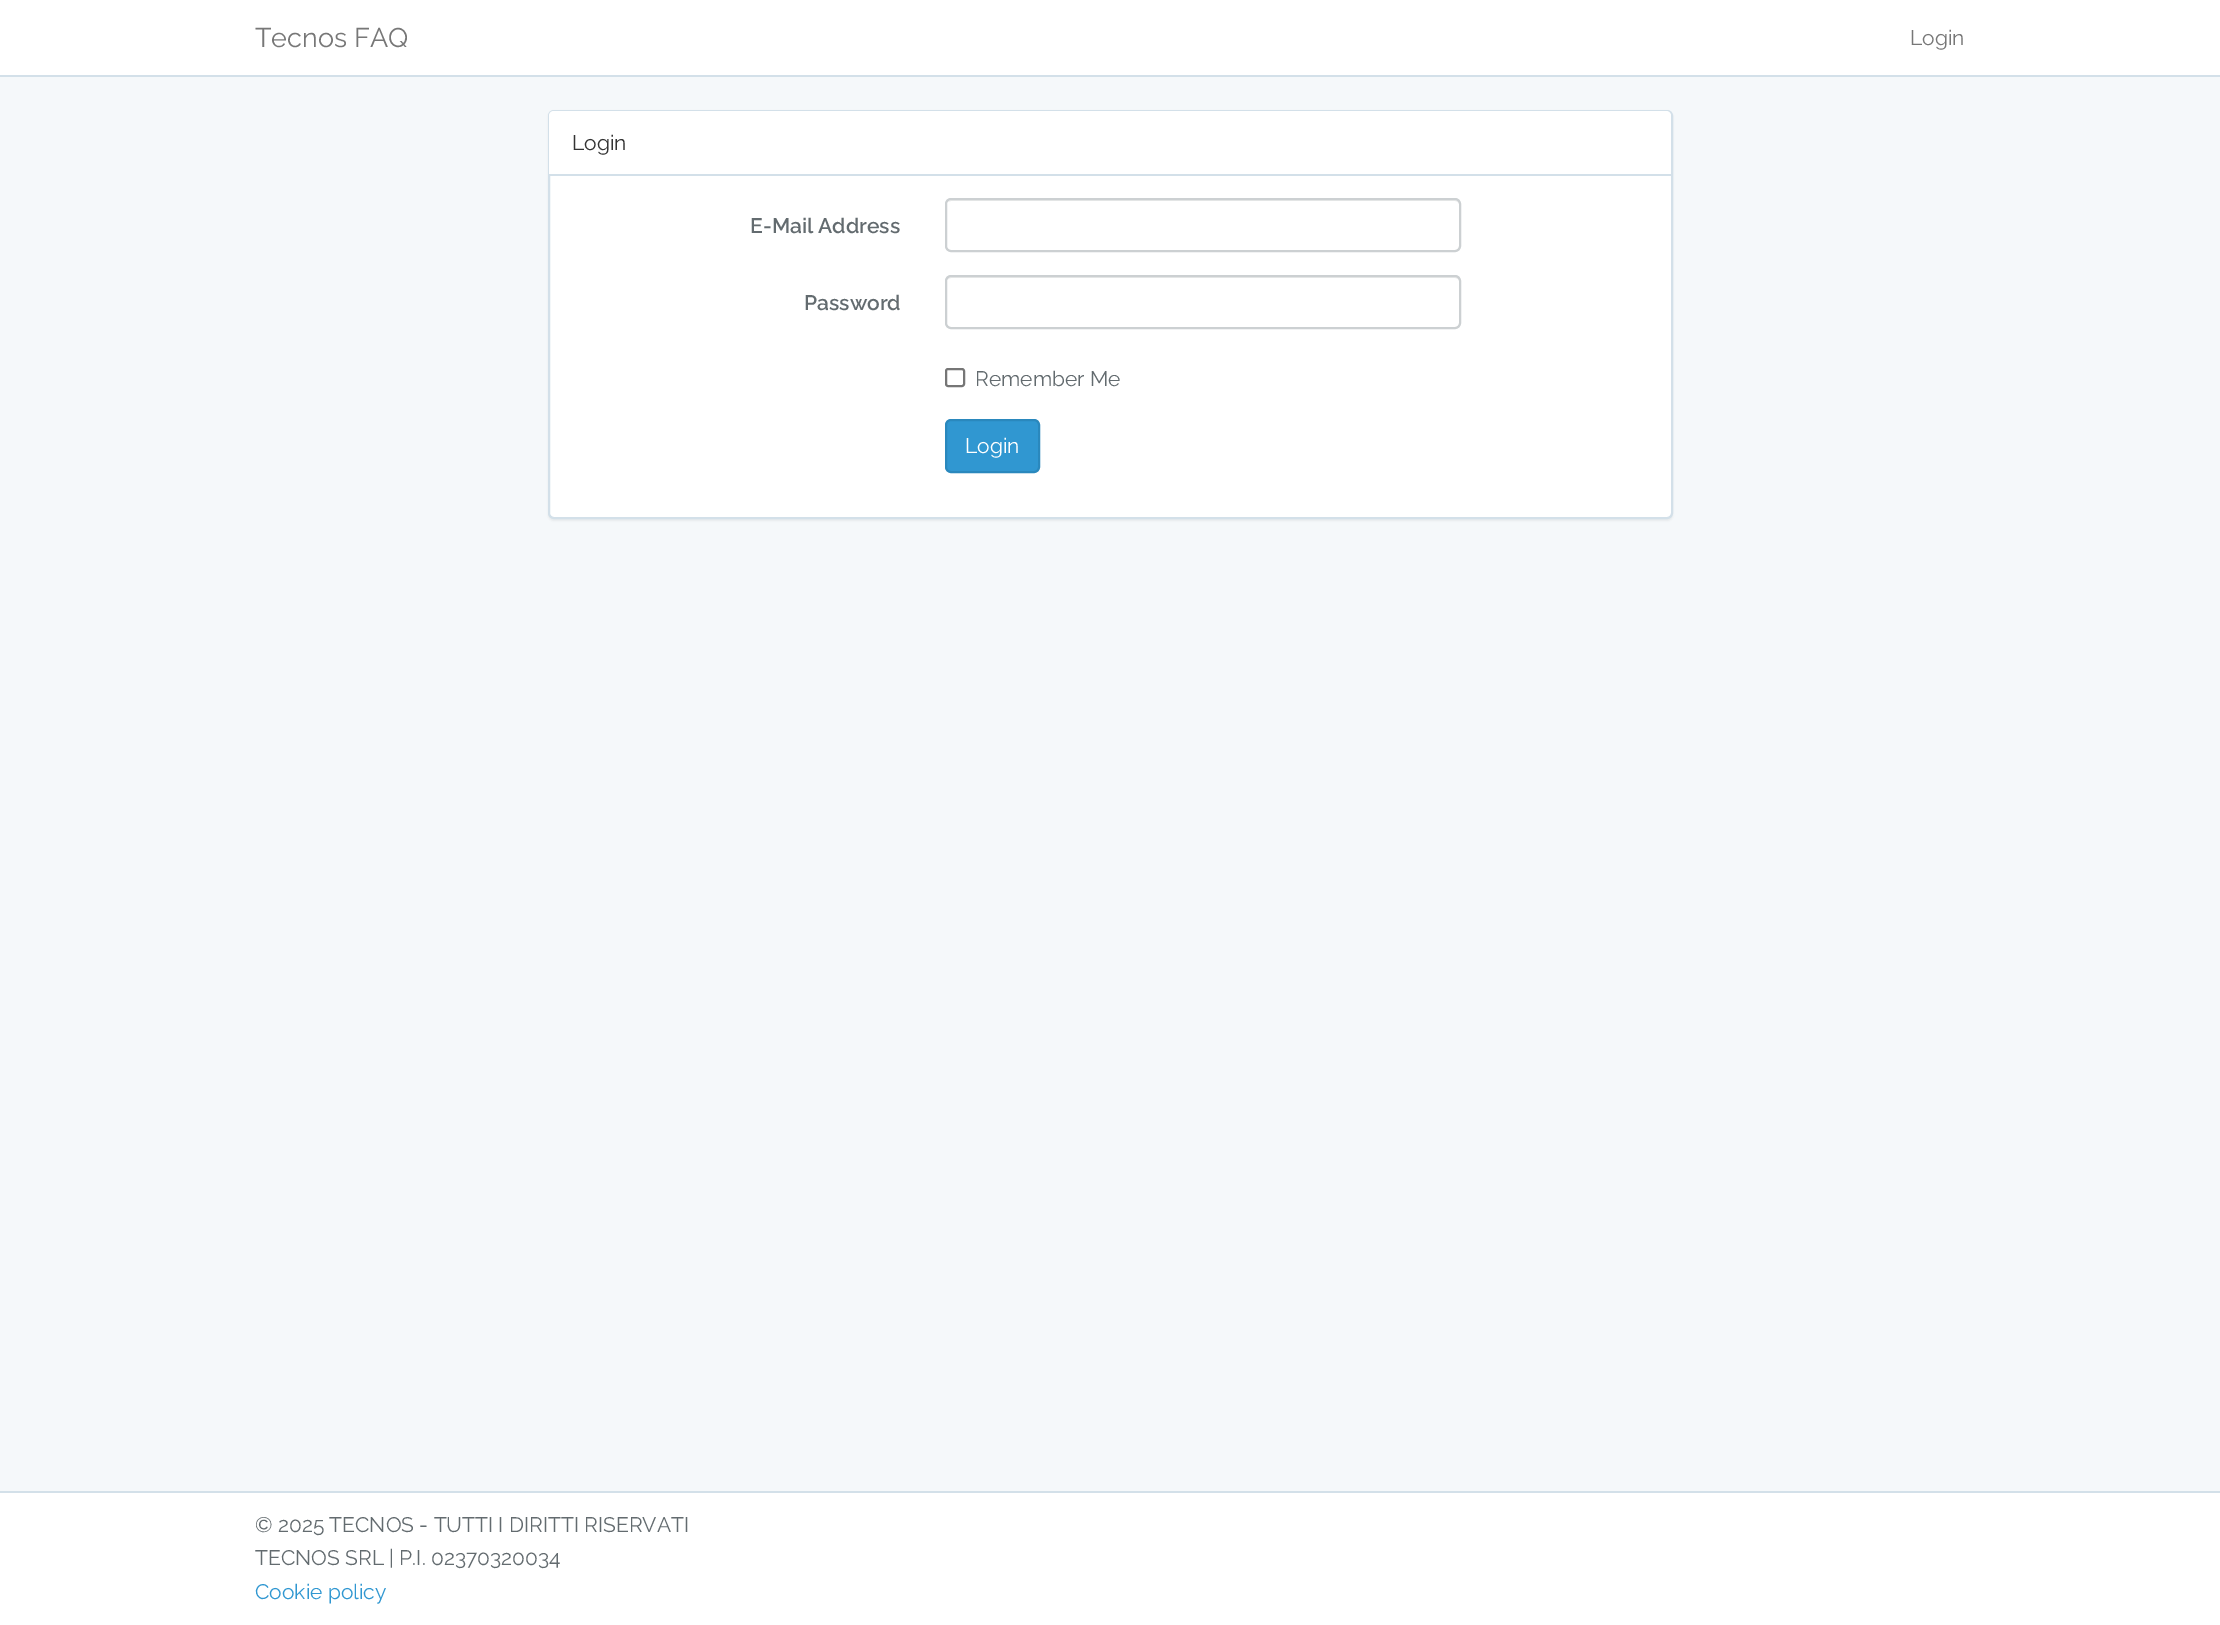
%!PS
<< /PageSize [2220 1625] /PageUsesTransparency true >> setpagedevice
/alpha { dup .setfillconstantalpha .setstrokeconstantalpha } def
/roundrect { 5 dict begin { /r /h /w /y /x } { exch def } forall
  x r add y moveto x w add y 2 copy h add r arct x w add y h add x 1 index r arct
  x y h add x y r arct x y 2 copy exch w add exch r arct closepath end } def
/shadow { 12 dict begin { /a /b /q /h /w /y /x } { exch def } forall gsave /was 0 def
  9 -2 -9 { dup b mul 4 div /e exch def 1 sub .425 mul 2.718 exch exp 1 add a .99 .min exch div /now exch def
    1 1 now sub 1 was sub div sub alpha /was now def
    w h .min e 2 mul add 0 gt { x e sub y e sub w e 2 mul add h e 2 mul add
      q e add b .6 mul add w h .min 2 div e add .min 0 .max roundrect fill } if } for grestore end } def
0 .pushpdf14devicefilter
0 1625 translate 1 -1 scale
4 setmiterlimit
0.961 0.973 0.98 setrgbcolor
0 0 2220 1625 rectfill
1 setgray
0 0 2220 75 rectfill
0.827 0.878 0.914 setrgbcolor
0 75 2220 2 rectfill
/Raleway-Regular [27 0 0 -27 0 0] selectfont
0.467 setgray
255 47 moveto (Tecnos FAQ) show
/Raleway-Regular [21 0 0 -21 0 0] selectfont
1910 45 moveto (Login) show
0 setgray
548 111 1125 410 6 1 0.05 shadow
1 setgray
549 111 1123 407 5 roundrect gsave fill grestore
0.827 0.878 0.914 setrgbcolor
2 setlinewidth
stroke
1 setgray
newpath 554 111 moveto 1666 111 lineto 1669 111 1671 113 1671 116 curveto 1671 176 lineto 549 176 lineto 549 116 lineto 549 113 551 111 554 111 curveto closepath fill
0.827 0.878 0.914 setrgbcolor
549 174 1122 2 rectfill
0.2 setgray
572 150 moveto (Login) show
/Raleway-SemiBold [21 0 0 -21 0 0] selectfont
0.388 0.42 0.435 setrgbcolor
750 233 moveto (E-Mail Address) show
0.925 setgray
newpath 951 201 moveto 1455 201 lineto 1457 201 1460 203 1460 206 curveto 1460 205 lineto 1460 202 1458 200 1455 200 curveto 952 200 lineto 950 200 949 201 948 202 curveto closepath fill
0.8 0.816 0.824 setrgbcolor
946 199 514 52 5 roundrect stroke
0.388 0.42 0.435 setrgbcolor
804 310 moveto (Password) show
0.925 setgray
newpath 951 278 moveto 1455 278 lineto 1457 278 1460 280 1460 282 curveto 1460 281 lineto 1460 278 1458 276 1455 276 curveto 952 276 lineto 950 276 948 278 947 280 curveto 948 279 950 278 951 278 curveto closepath fill
0.8 0.816 0.824 setrgbcolor
946 276 514 52 5 roundrect stroke
0.463 setgray
946 369 18 17 2 roundrect stroke
/Raleway-Regular [21 0 0 -21 0 0] selectfont
0.388 0.42 0.435 setrgbcolor
975 386 moveto (Remember Me) show
0.188 0.592 0.82 setrgbcolor
946 420 93 52 5 roundrect gsave fill grestore
0.165 0.533 0.741 setrgbcolor
stroke
1 setgray
965 453 moveto (Login) show
0 1493 2220 132 rectfill
0.827 0.878 0.914 setrgbcolor
0 1491 2220 2 rectfill
0.388 0.42 0.435 setrgbcolor
255 1532 moveto (© 2025 TECNOS - TUTTI I DIRITTI RISERVATI) show
255 1565 moveto (TECNOS SRL | P.I. 02370320034) show
0.188 0.592 0.82 setrgbcolor
255 1599 moveto (Cookie policy) show
.poppdf14devicefilter showpage
